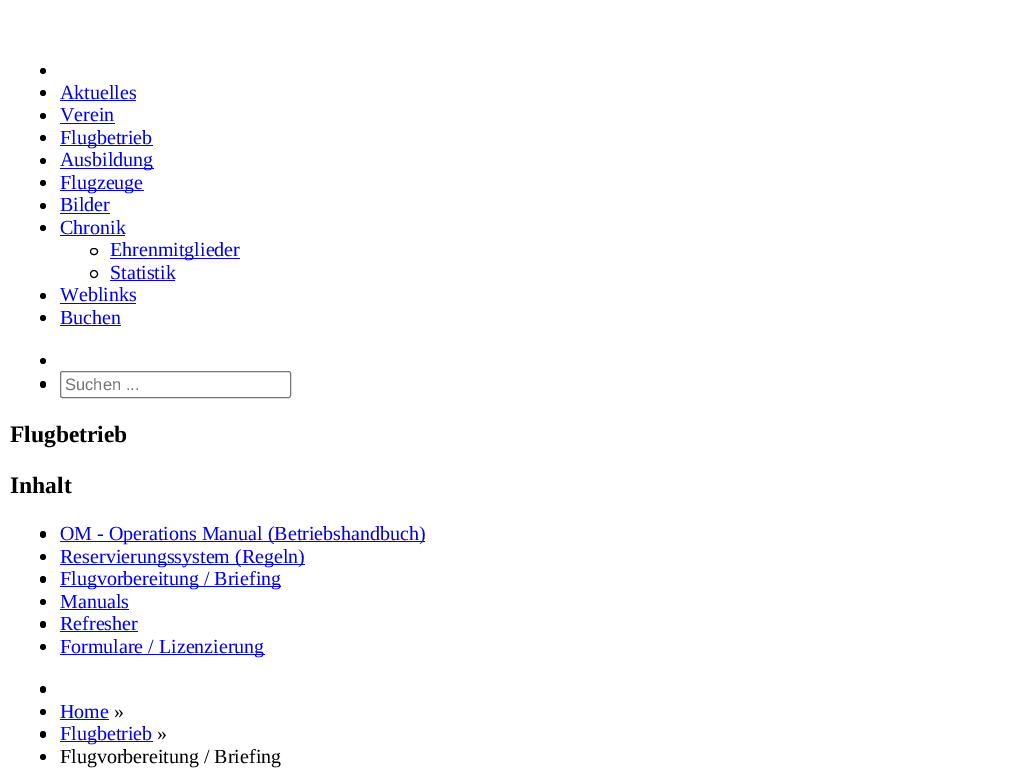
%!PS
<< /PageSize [1036 777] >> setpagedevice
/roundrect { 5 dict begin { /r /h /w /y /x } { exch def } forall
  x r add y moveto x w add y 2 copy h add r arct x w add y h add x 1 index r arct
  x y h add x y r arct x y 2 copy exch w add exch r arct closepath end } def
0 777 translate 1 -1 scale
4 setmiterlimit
1 setgray
0 0 1036 777 rectfill
0 setgray
newpath 43 71 3 0 360 arc closepath fill
newpath 43 93 3 0 360 arc closepath fill
/LiberationSerif-Regular [20 0 0 -20 0 0] selectfont
0 0 0.933 setrgbcolor
60 99 moveto (Aktuelles) show
60 100 76 1 rectfill
0 setgray
newpath 43 116 3 0 360 arc closepath fill
0 0 0.933 setrgbcolor
60 121 moveto (Verein) show
60 123 55 1 rectfill
0 setgray
newpath 43 138 3 0 360 arc closepath fill
0 0 0.933 setrgbcolor
60 145 93 1 rectfill
60 144 moveto (Flugbetrieb) show
0 setgray
newpath 43 161 3 0 360 arc closepath fill
0 0 0.933 setrgbcolor
60 168 94 1 rectfill
60 166 moveto (Ausbildung) show
0 setgray
newpath 43 183 3 0 360 arc closepath fill
0 0 0.933 setrgbcolor
60 190 84 1 rectfill
60 189 moveto (Flugzeuge) show
0 setgray
newpath 43 206 3 0 360 arc closepath fill
0 0 0.933 setrgbcolor
60 211 moveto (Bilder) show
60 213 50 1 rectfill
0 setgray
newpath 43 228 3 0 360 arc closepath fill
0 0 0.933 setrgbcolor
60 234 moveto (Chronik) show
60 235 65 1 rectfill
0 setgray
90.5 248.5 7 6 3 roundrect stroke
0 0 0.933 setrgbcolor
110 258 130 1 rectfill
110 256 moveto (Ehrenmitglieder) show
0 setgray
newpath 94 274 3.5 0 360 arc closepath stroke
0 0 0.933 setrgbcolor
110 279 moveto (Statistik) show
110 280 65 1 rectfill
0 setgray
newpath 43 296 3 0 360 arc closepath fill
0 0 0.933 setrgbcolor
60 301 moveto (Weblinks) show
60 303 76 1 rectfill
0 setgray
newpath 43 318 3 0 360 arc closepath fill
0 0 0.933 setrgbcolor
60 324 moveto (Buchen) show
60 325 61 1 rectfill
0 setgray
newpath 43 361 3 0 360 arc closepath fill
40 381 6 7 3 roundrect fill
0.463 setgray
60.5 371.5 230 26 2 roundrect stroke
/LiberationSans-Regular [16.5 0 0 -16.5 0 0] selectfont
0.459 setgray
65 390 moveto (Suchen ...) show
/LiberationSerif-Bold [23.5 0 0 -23.5 0 0] selectfont
0 setgray
10 442 moveto (Flugbetrieb) show
10 493 moveto (Inhalt) show
40 531 6 7 3 roundrect fill
0 0 0.933 setrgbcolor
60 541 365 1 rectfill
/LiberationSerif-Regular [20 0 0 -20 0 0] selectfont
60 540 moveto (OM - Operations Manual \(Betriebshandbuch\)) show
0 setgray
newpath 43 557 3 0 360 arc closepath fill
0 0 0.933 setrgbcolor
60 564 245 1 rectfill
60 563 moveto (Reservierungssystem \(Regeln\)) show
0 setgray
40 576 6 7 3 roundrect fill
0 0 0.933 setrgbcolor
60 586 221 1 rectfill
60 585 moveto (Flugvorbereitung / Briefing) show
0 setgray
newpath 43 602 3 0 360 arc closepath fill
0 0 0.933 setrgbcolor
60 608 moveto (Manuals) show
60 609 69 1 rectfill
0 setgray
40 621 6 7 3 roundrect fill
0 0 0.933 setrgbcolor
60 630 moveto (Refresher) show
60 631 78 1 rectfill
0 setgray
newpath 43 647 3 0 360 arc closepath fill
0 0 0.933 setrgbcolor
60 654 205 1 rectfill
60 653 moveto (Formulare / Lizenzierung) show
0 setgray
40 686 6 7 3 roundrect fill
newpath 43 712 3 0 360 arc closepath fill
0 0 0.933 setrgbcolor
60 718 moveto (Home) show
60 719 49 1 rectfill
0 setgray
114 718 moveto (») show
40 731 6 7 3 roundrect fill
0 0 0.933 setrgbcolor
60 741 93 1 rectfill
60 740 moveto (Flugbetrieb) show
0 setgray
157 740 moveto (») show
newpath 43 757 3 0 360 arc closepath fill
60 763 moveto (Flugvorbereitung / Briefing) show
showpage
